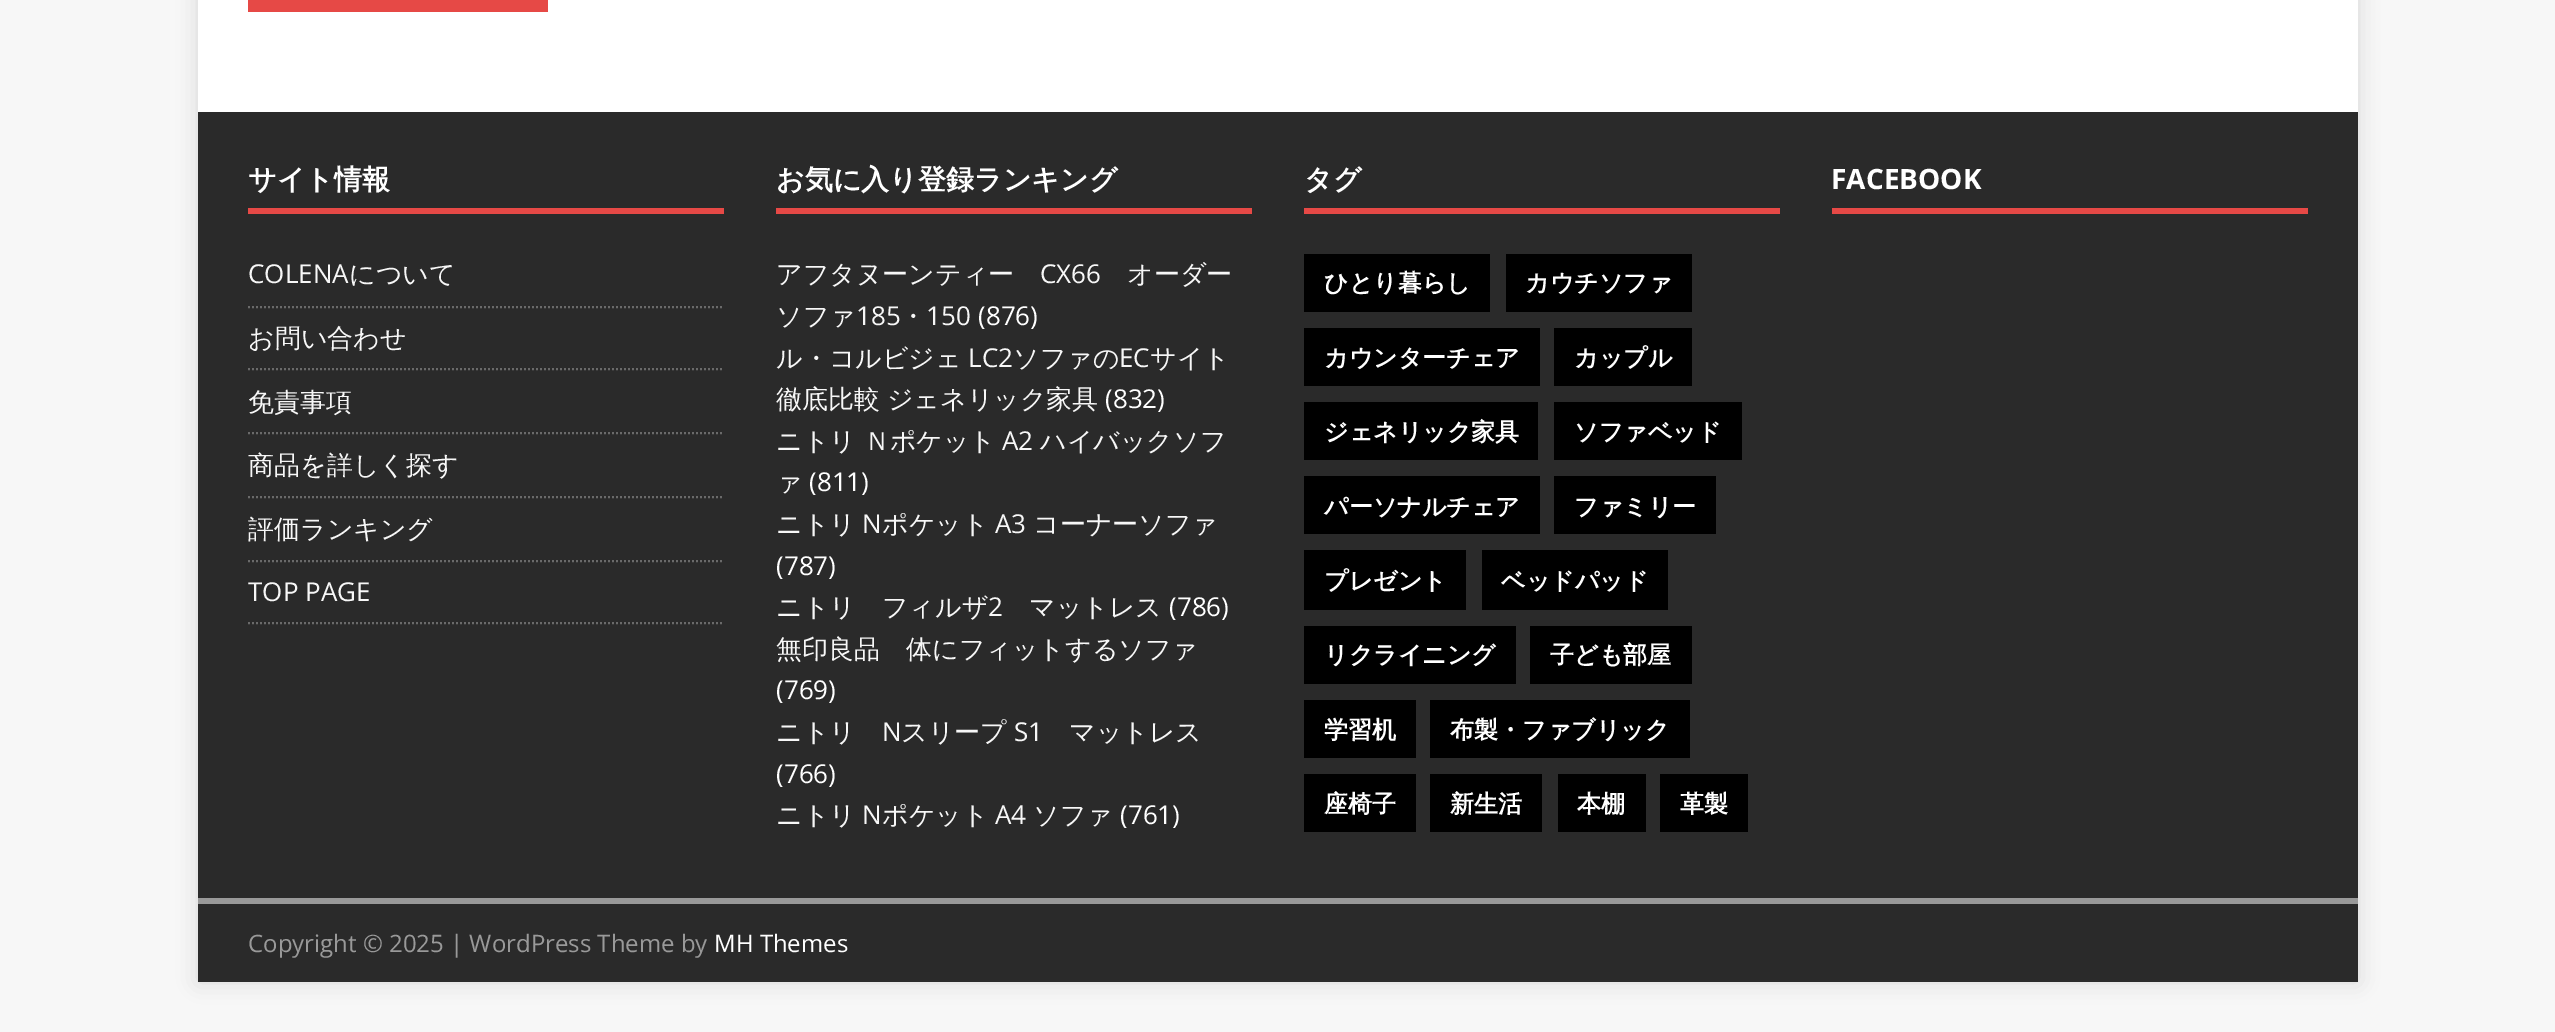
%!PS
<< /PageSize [2555 1032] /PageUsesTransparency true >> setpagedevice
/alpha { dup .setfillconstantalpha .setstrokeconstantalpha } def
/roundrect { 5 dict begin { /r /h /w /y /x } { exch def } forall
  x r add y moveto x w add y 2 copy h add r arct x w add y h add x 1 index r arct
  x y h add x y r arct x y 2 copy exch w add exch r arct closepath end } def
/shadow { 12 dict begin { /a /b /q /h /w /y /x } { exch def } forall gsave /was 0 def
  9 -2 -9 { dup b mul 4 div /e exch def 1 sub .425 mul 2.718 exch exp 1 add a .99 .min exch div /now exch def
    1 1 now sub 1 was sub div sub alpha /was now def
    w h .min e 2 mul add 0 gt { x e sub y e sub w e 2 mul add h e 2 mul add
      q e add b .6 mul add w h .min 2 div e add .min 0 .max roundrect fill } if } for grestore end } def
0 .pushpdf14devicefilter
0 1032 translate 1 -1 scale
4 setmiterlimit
0.969 setgray
0 0 2555 1032 rectfill
0.196 setgray
198 -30 2160 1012 0 10 0.17 shadow
1 setgray
198 0 2160 112 rectfill
0.902 0.286 0.275 setrgbcolor
248 0 300 12 rectfill
0.165 setgray
198 112 2160 786 rectfill
0.902 0.286 0.275 setrgbcolor
248 208 476 6 rectfill
/WenQuanYiZenHei-Bold [28 0 0 -28 0 0] selectfont
1 setgray
248 189 moveto (サイト情報) show
0.416 setgray
2 setlinewidth
[2 2] 0 setdash
newpath 248 307 moveto 724 307 lineto stroke
/OpenSans-Regular [26 0 0 -26 0 0] selectfont
0.969 setgray
248 283 moveto (COLENA) show
/WenQuanYiZenHei-Medium [26 0 0 -26 0 0] selectfont
349 283 moveto (について) show
0.416 setgray
newpath 248 369 moveto 724 369 lineto stroke
0.969 setgray
248 347 moveto (お問い合わせ) show
0.416 setgray
newpath 248 433 moveto 724 433 lineto stroke
0.969 setgray
248 411 moveto (免責事項) show
0.416 setgray
newpath 248 497 moveto 724 497 lineto stroke
0.969 setgray
248 474 moveto (商品を詳しく探す) show
0.416 setgray
newpath 248 561 moveto 724 561 lineto stroke
0.969 setgray
248 538 moveto (評価ランキング) show
0.416 setgray
newpath 248 623 moveto 724 623 lineto stroke
/OpenSans-Regular [26 0 0 -26 0 0] selectfont
0.969 setgray
248 601 moveto (TOP PAGE) show
0.902 0.286 0.275 setrgbcolor
776 208 476 6 rectfill
/WenQuanYiZenHei-Bold [28 0 0 -28 0 0] selectfont
1 setgray
776 189 moveto (お気に入り登録ランキング) show
/WenQuanYiZenHei-Medium [26 0 0 -26 0 0] selectfont
0.969 setgray
776 283 moveto (アフタヌーンティー) show
/OpenSans-Regular [26 0 0 -26 0 0] selectfont
1040 283 moveto (CX66) show
/WenQuanYiZenHei-Medium [26 0 0 -26 0 0] selectfont
1127 283 moveto (オーダー) show
776 325 moveto (ソファ) show
/OpenSans-Regular [26 0 0 -26 0 0] selectfont
856 325 moveto (185) show
/WenQuanYiZenHei-Medium [26 0 0 -26 0 0] selectfont
900 325 moveto (・) show
/OpenSans-Regular [26 0 0 -26 0 0] selectfont
926 325 moveto (150) show
1 setgray
978 325 moveto (\(876\)) show
/WenQuanYiZenHei-Medium [26 0 0 -26 0 0] selectfont
0.969 setgray
776 367 moveto (ル・コルビジェ) show
/OpenSans-Regular [26 0 0 -26 0 0] selectfont
968 367 moveto (LC2) show
/WenQuanYiZenHei-Medium [26 0 0 -26 0 0] selectfont
1013 367 moveto (ソファの) show
/OpenSans-Regular [26 0 0 -26 0 0] selectfont
1119 367 moveto (EC) show
/WenQuanYiZenHei-Medium [26 0 0 -26 0 0] selectfont
1150 367 moveto (サイト) show
776 408 moveto -1 0 32 (徹底比較 ジェネリック家具) widthshow
/OpenSans-Regular [26 0 0 -26 0 0] selectfont
1 setgray
1105 408 moveto (\(832\)) show
/WenQuanYiZenHei-Medium [26 0 0 -26 0 0] selectfont
0.969 setgray
776 450 moveto (ニトリ Ｎポケット) show
/OpenSans-Regular [26 0 0 -26 0 0] selectfont
1002 450 moveto (A2) show
/WenQuanYiZenHei-Medium [26 0 0 -26 0 0] selectfont
1040 450 moveto (ハイバックソフ) show
776 491 moveto (ァ) show
/OpenSans-Regular [26 0 0 -26 0 0] selectfont
1 setgray
809 491 moveto (\(811\)) show
/WenQuanYiZenHei-Medium [26 0 0 -26 0 0] selectfont
0.969 setgray
776 533 moveto (ニトリ) show
/OpenSans-Regular [26 0 0 -26 0 0] selectfont
862 533 moveto (N) show
/WenQuanYiZenHei-Medium [26 0 0 -26 0 0] selectfont
882 533 moveto (ポケット) show
/OpenSans-Regular [26 0 0 -26 0 0] selectfont
995 533 moveto (A3) show
/WenQuanYiZenHei-Medium [26 0 0 -26 0 0] selectfont
1033 533 moveto (コーナーソファ) show
/OpenSans-Regular [26 0 0 -26 0 0] selectfont
1 setgray
776 575 moveto (\(787\)) show
/WenQuanYiZenHei-Medium [26 0 0 -26 0 0] selectfont
0.969 setgray
776 616 moveto (ニトリ　フィルザ) show
/OpenSans-Regular [26 0 0 -26 0 0] selectfont
988 616 moveto (2) show
/WenQuanYiZenHei-Medium [26 0 0 -26 0 0] selectfont
1029 616 moveto (マットレス) show
/OpenSans-Regular [26 0 0 -26 0 0] selectfont
1 setgray
1169 616 moveto (\(786\)) show
/WenQuanYiZenHei-Medium [26 0 0 -26 0 0] selectfont
0.969 setgray
776 658 moveto (無印良品　体にフィットするソファ) show
/OpenSans-Regular [26 0 0 -26 0 0] selectfont
1 setgray
776 699 moveto (\(769\)) show
/WenQuanYiZenHei-Medium [26 0 0 -26 0 0] selectfont
0.969 setgray
776 741 moveto (ニトリ) show
/OpenSans-Regular [26 0 0 -26 0 0] selectfont
882 741 moveto (N) show
/WenQuanYiZenHei-Medium [26 0 0 -26 0 0] selectfont
901 741 moveto (スリープ) show
/OpenSans-Regular [26 0 0 -26 0 0] selectfont
1014 741 moveto (S1) show
/WenQuanYiZenHei-Medium [26 0 0 -26 0 0] selectfont
1069 741 moveto (マットレス) show
/OpenSans-Regular [26 0 0 -26 0 0] selectfont
1 setgray
776 783 moveto (\(766\)) show
/WenQuanYiZenHei-Medium [26 0 0 -26 0 0] selectfont
0.969 setgray
776 824 moveto (ニトリ) show
/OpenSans-Regular [26 0 0 -26 0 0] selectfont
862 824 moveto (N) show
/WenQuanYiZenHei-Medium [26 0 0 -26 0 0] selectfont
882 824 moveto (ポケット) show
/OpenSans-Regular [26 0 0 -26 0 0] selectfont
995 824 moveto (A4) show
/WenQuanYiZenHei-Medium [26 0 0 -26 0 0] selectfont
1033 824 moveto (ソファ) show
/OpenSans-Regular [26 0 0 -26 0 0] selectfont
1 setgray
1120 824 moveto (\(761\)) show
0.902 0.286 0.275 setrgbcolor
1304 208 476 6 rectfill
/WenQuanYiZenHei-Bold [28 0 0 -28 0 0] selectfont
1 setgray
1304 189 moveto (タグ) show
0 setgray
1304 254 186 58 rectfill
/WenQuanYiZenHei-Bold [24 0 0 -24 0 0] selectfont
1 setgray
1324 291 moveto (ひとり暮らし) show
0 setgray
1506 254 186 58 rectfill
1 setgray
1525 291 moveto (カウチソファ) show
0 setgray
1304 328 236 58 rectfill
1 setgray
1324 366 moveto (カウンターチェア) show
0 setgray
1554 328 138 58 rectfill
1 setgray
1574 366 moveto (カップル) show
0 setgray
1304 402 234 58 rectfill
1 setgray
1324 440 moveto (ジェネリック家具) show
0 setgray
1554 402 188 58 rectfill
1 setgray
1574 440 moveto (ソファベッド) show
0 setgray
1304 476 236 58 rectfill
1 setgray
1324 515 moveto (パーソナルチェア) show
0 setgray
1554 476 162 58 rectfill
1 setgray
1574 515 moveto (ファミリー) show
0 setgray
1304 550 162 60 rectfill
1 setgray
1324 589 moveto (プレゼント) show
0 setgray
1482 550 186 60 rectfill
1 setgray
1501 589 moveto (ベッドパッド) show
0 setgray
1304 626 212 58 rectfill
1 setgray
1324 663 moveto (リクライニング) show
0 setgray
1530 626 162 58 rectfill
1 setgray
1550 663 moveto (子ども部屋) show
0 setgray
1304 700 112 58 rectfill
1 setgray
1324 738 moveto (学習机) show
0 setgray
1430 700 260 58 rectfill
1 setgray
1450 738 moveto (布製・ファブリック) show
0 setgray
1304 774 112 58 rectfill
1 setgray
1324 812 moveto (座椅子) show
0 setgray
1430 774 112 58 rectfill
1 setgray
1450 812 moveto (新生活) show
0 setgray
1558 774 88 58 rectfill
1 setgray
1577 812 moveto (本棚) show
0 setgray
1660 774 88 58 rectfill
1 setgray
1680 812 moveto (革製) show
0.902 0.286 0.275 setrgbcolor
1832 208 476 6 rectfill
/OpenSans-Bold [28 0 0 -28 0 0] selectfont
1 setgray
1831 189 moveto (FACEBOOK) show
0.165 setgray
198 904 2160 78 rectfill
0.6 setgray
198 898 2160 6 rectfill
/OpenSans-Regular [24 0 0 -24 0 0] selectfont
248 952 moveto (Copyright © 2025 | WordPress Theme by) show
1 setgray
714 952 moveto (MH Themes) show
.poppdf14devicefilter showpage
